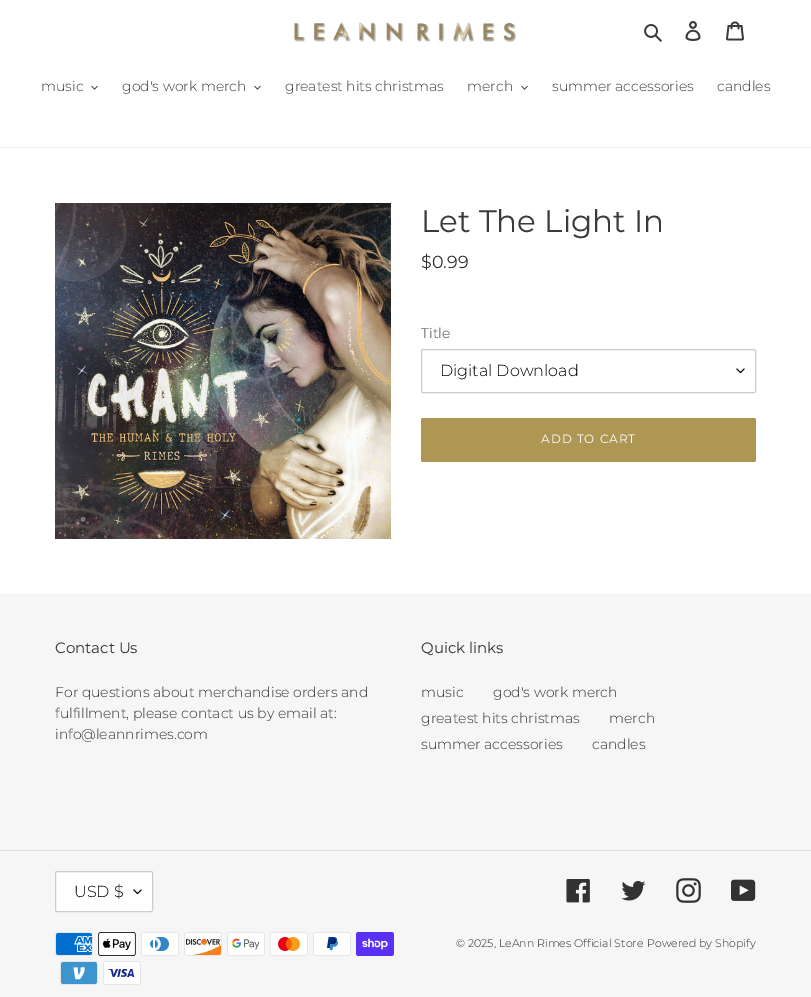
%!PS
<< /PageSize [811 997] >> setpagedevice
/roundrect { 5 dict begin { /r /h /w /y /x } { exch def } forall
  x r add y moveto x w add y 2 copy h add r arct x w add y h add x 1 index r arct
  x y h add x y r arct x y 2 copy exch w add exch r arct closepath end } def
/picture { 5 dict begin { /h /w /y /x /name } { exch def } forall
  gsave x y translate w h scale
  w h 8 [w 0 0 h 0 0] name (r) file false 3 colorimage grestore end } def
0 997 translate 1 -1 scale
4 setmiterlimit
1 setgray
0 0 811 997 rectfill
(img1.rgb) 294 22 222 20 picture
(img2.rgb) 644 24 18 18 picture
(img3.rgb) 685 21 16 20 picture
(img4.rgb) 726 21 18 20 picture
0.922 setgray
0 147 811 1 rectfill
/Montserrat-Light [14 0 0 -14 0 0] selectfont
0.227 setgray
41 91 moveto (music) show
(img5.rgb) 91 85 7 5 picture
122 91 moveto (god's work merch) show
(img5.rgb) 254 85 7 5 picture
285 91 moveto (greatest hits christmas) show
467 91 moveto (merch) show
(img5.rgb) 521 85 7 5 picture
552 91 moveto (summer accessories) show
717 91 moveto (candles) show
(img6.rgb) 55 203 336 336 picture
/Montserrat-Regular [31 0 0 -31 0 0] selectfont
421 232 moveto (Let The Light In) show
/Montserrat-Regular [17.5 0 0 -17.5 0 0] selectfont
0.2 0.196 0.196 setrgbcolor
421 268 moveto ($0.99) show
/Montserrat-Light [14 0 0 -14 0 0] selectfont
0.227 setgray
421 338 moveto (Title) show
(img7.rgb) 736 368 9 6 picture
0.8 setgray
421.5 349.5 334 43 1.5 roundrect stroke
/Montserrat-Light [16 0 0 -16 0 0] selectfont
0 setgray
440 376 moveto (Digital Download) show
0.682 0.592 0.325 setrgbcolor
421 418 335 44 2 roundrect fill
/Montserrat-Regular [12 0 0 -12 0 0] selectfont
1 setgray
541 443 moveto 1 0 (ADD TO CART) ashow
0.965 setgray
0 594 811 403 rectfill
/Montserrat-Regular [15 0 0 -15 0 0] selectfont
0.2 0.196 0.196 setrgbcolor
55 653 moveto (Contact Us) show
/Montserrat-Light [14 0 0 -14 0 0] selectfont
55 697 moveto (For questions about merchandise orders and) show
55 718 moveto (fulfillment, please contact us by email at:) show
55 739 moveto (info@leannrimes.com) show
/Montserrat-Regular [15 0 0 -15 0 0] selectfont
421 653 moveto (Quick links) show
/Montserrat-Light [14 0 0 -14 0 0] selectfont
421 697 moveto (music) show
493 697 moveto (god's work merch) show
421 723 moveto (greatest hits christmas) show
609 723 moveto (merch) show
421 749 moveto (summer accessories) show
592 749 moveto (candles) show
0.867 setgray
0 850 811 1 rectfill
1 setgray
55 871 98 41 2 roundrect fill
(img7.rgb) 133 889 9 6 picture
0.8 setgray
55.5 871.5 97 40 1.5 roundrect stroke
/Montserrat-Light [16 0 0 -16 0 0] selectfont
0 setgray
74 897 moveto (USD $) show
(img8.rgb) 566 879 24 24 picture
(img9.rgb) 621 881 25 20 picture
(img10.rgb) 676 878 25 25 picture
(img11.rgb) 731 879 25 22 picture
(img12.rgb) 55 932 38 24 picture
(img13.rgb) 98 932 38 24 picture
(img14.rgb) 141 932 38 24 picture
(img15.rgb) 184 932 38 24 picture
(img16.rgb) 227 932 38 24 picture
(img17.rgb) 270 932 38 24 picture
(img18.rgb) 313 932 38 24 picture
(img19.rgb) 356 932 38 24 picture
(img20.rgb) 60 961 38 24 picture
(img21.rgb) 103 961 38 24 picture
/Montserrat-Light [11 0 0 -11 0 0] selectfont
0.2 0.196 0.196 setrgbcolor
456 947 moveto (© 2025, LeAnn Rimes Official Store) show
647 947 moveto (Powered by Shopify) show
showpage
